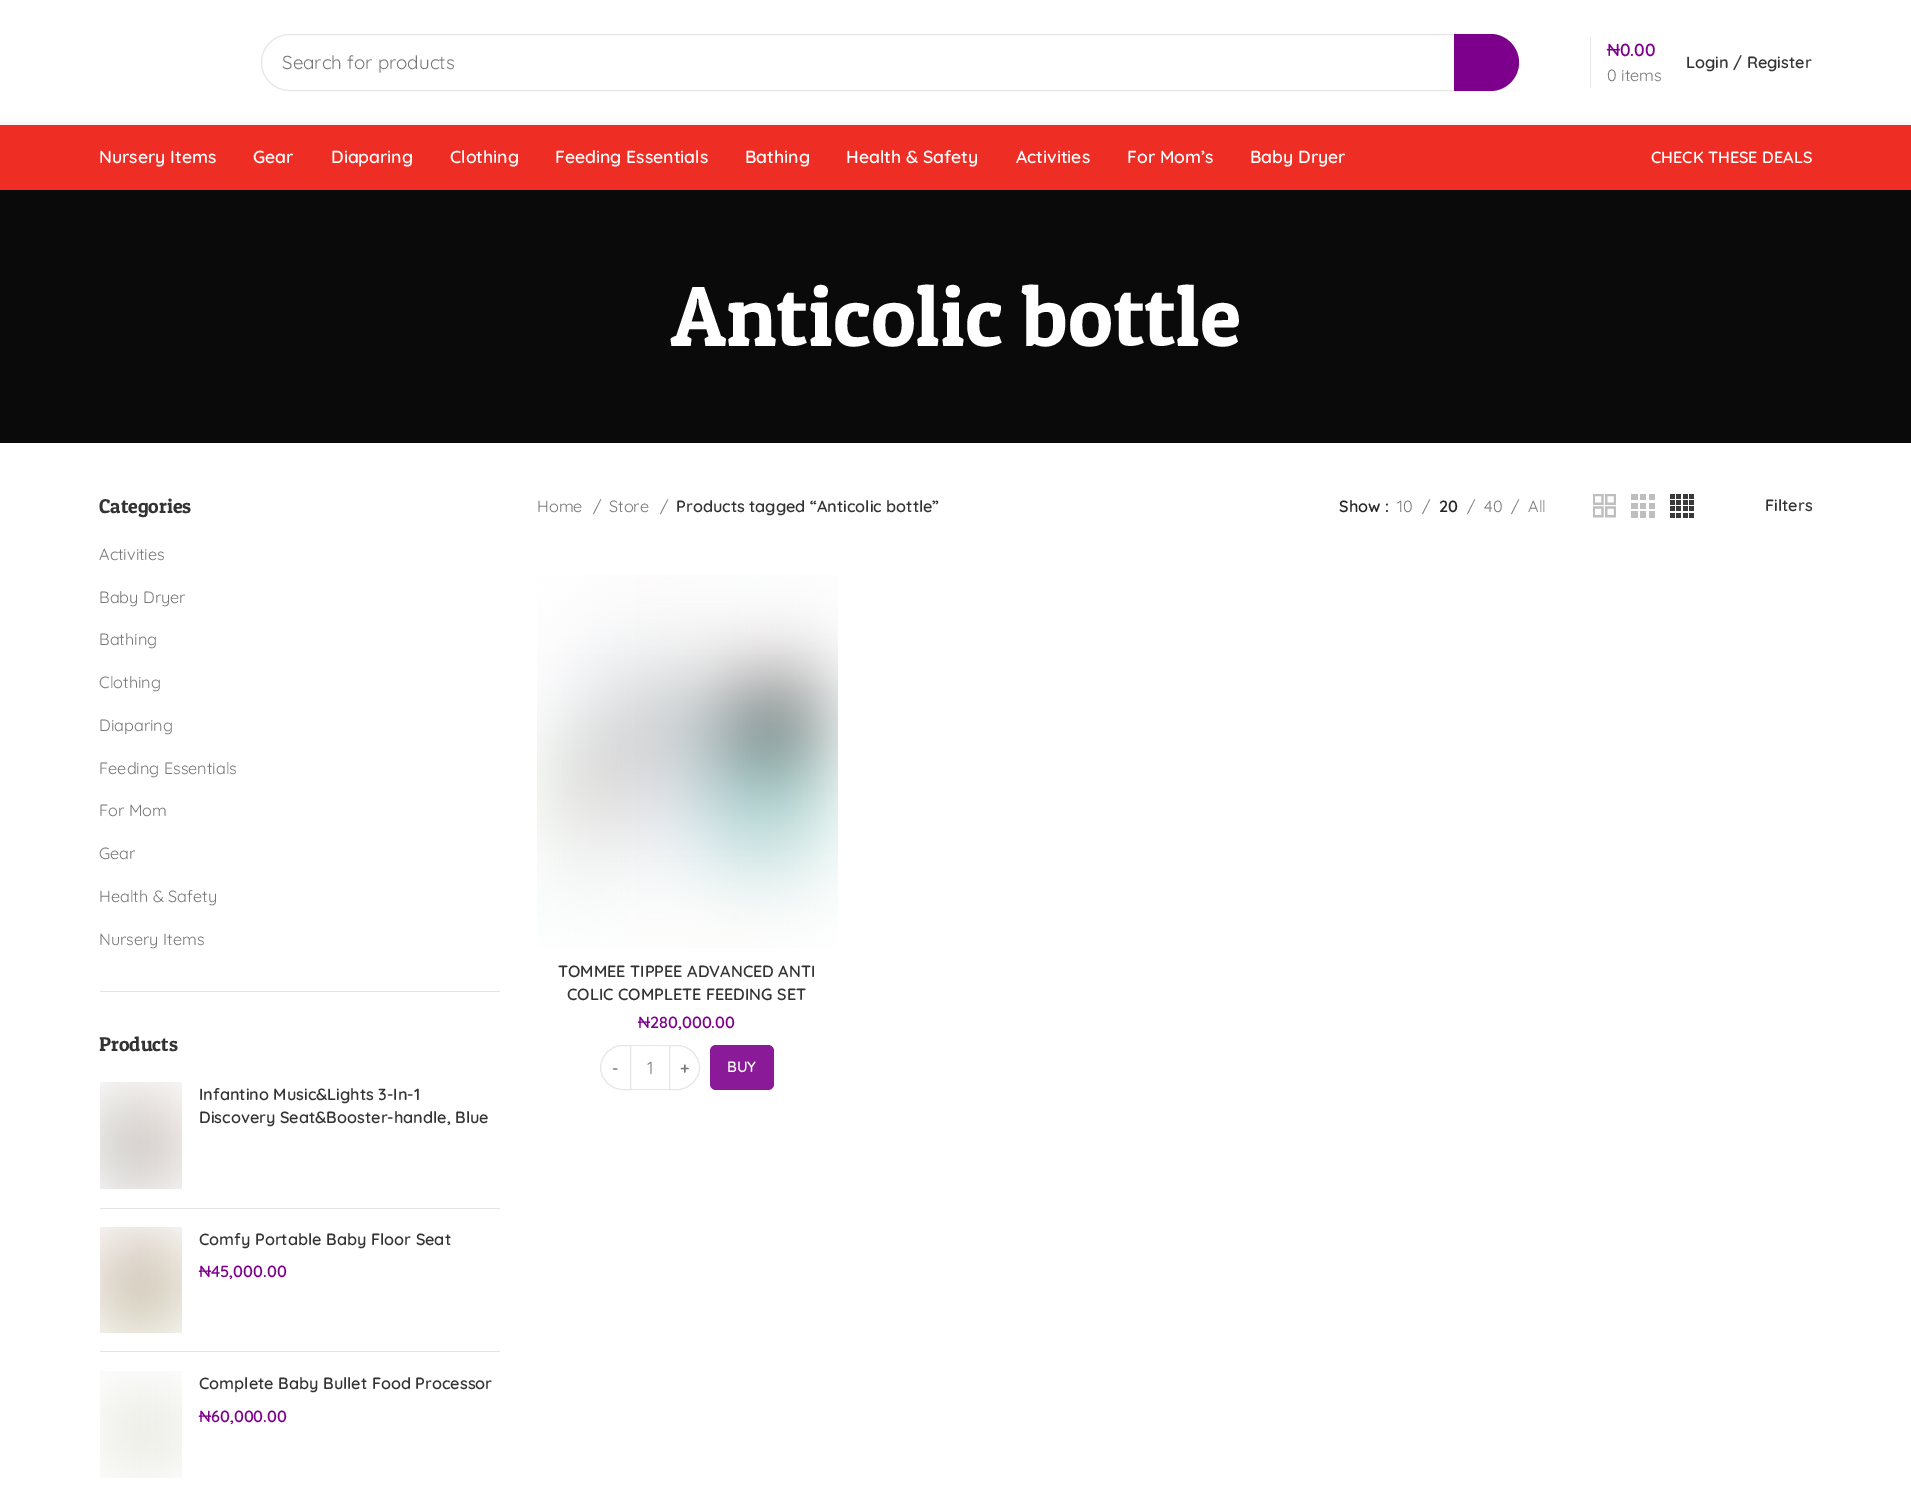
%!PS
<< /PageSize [1911 1492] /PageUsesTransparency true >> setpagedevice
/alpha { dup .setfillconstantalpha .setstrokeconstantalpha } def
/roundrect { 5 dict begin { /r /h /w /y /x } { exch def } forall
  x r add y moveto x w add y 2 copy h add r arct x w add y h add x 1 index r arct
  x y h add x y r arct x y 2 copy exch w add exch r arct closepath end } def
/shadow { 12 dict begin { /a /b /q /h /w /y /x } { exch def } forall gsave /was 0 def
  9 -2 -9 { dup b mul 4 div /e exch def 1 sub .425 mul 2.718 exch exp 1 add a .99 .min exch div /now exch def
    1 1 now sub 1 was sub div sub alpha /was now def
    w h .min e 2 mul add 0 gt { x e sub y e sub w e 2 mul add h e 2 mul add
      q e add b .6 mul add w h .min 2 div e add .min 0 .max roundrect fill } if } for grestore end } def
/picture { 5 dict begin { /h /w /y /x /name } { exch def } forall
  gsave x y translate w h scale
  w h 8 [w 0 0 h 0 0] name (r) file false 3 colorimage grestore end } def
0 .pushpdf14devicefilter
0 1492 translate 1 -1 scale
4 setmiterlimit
1 setgray
0 0 1911 1492 rectfill
0.902 setgray
261.5 34.5 1257 56 28 roundrect stroke
/Quicksand-Regular [18.75 0 0 -18.75 0 0] selectfont
0.467 setgray
282 69 moveto (Search for products) show
0.49 0 0.553 setrgbcolor
newpath 1454 34 moveto 1490.5 34 lineto 1506 34 1519 47 1519 62.5 curveto 1519 78 1506 91 1490.5 91 curveto 1454 91 lineto closepath fill
0.902 setgray
1590 38 1 50 rectfill
/Quicksand-SemiBold [17.5 0 0 -17.5 0 0] selectfont
0.49 0 0.553 setrgbcolor
1607 56 moveto (₦0.00) show
/Quicksand-Regular [16.25 0 0 -16.25 0 0] selectfont
0.467 setgray
1607 81 moveto (0 items) show
/Quicksand-SemiBold [16.25 0 0 -16.25 0 0] selectfont
0.2 setgray
1686 68 moveto (Login / Register) show
0.039 setgray
0 190 1911 253 rectfill
0 setgray
0 126 1911 65 0 5 0.1 shadow
0.933 0.176 0.141 setrgbcolor
0 125 1911 65 rectfill
/Quicksand-SemiBold [17.5 0 0 -17.5 0 0] selectfont
1 setgray
99 163 moveto (Nursery Items) show
253 163 moveto (Gear) show
331 163 moveto (Diaparing) show
450 163 moveto (Clothing) show
555 163 moveto (Feeding Essentials) show
745 163 moveto (Bathing) show
846 163 moveto (Health & Safety) show
1016 163 moveto (Activities) show
1127 163 moveto (For Mom’s) show
1250 163 moveto (Baby Dryer) show
/Quicksand-SemiBold [16.25 0 0 -16.25 0 0] selectfont
1651 163 moveto (CHECK THESE DEALS) show
/PatuaOne-Regular [85 0 0 -85 0 0] selectfont
671 346 moveto (Anticolic bottle) show
0.894 setgray
100 991 400 1 rectfill
/PatuaOne-Regular [20 0 0 -20 0 0] selectfont
0.2 setgray
99 513 moveto (Categories) show
/Quicksand-Regular [16.25 0 0 -16.25 0 0] selectfont
0.467 setgray
99 560 moveto (Activities) show
99 603 moveto (Baby Dryer) show
99 645 moveto (Bathing) show
99 688 moveto (Clothing) show
99 731 moveto (Diaparing) show
99 774 moveto (Feeding Essentials) show
99 816 moveto (For Mom) show
99 859 moveto (Gear) show
99 902 moveto (Health & Safety) show
99 945 moveto (Nursery Items) show
/PatuaOne-Regular [20 0 0 -20 0 0] selectfont
0.2 setgray
99 1051 moveto (Products) show
0.894 setgray
100 1208 400 1 rectfill
(img1.rgb) 100 1082 82 107 picture
/Quicksand-SemiBold [16.25 0 0 -16.25 0 0] selectfont
0.2 setgray
199 1100 moveto (Infantino Music&Lights 3-In-1) show
199 1123 moveto (Discovery Seat&Booster-handle, Blue) show
0.894 setgray
100 1351 400 1 rectfill
(img2.rgb) 100 1227 82 106 picture
0.2 setgray
199 1245 moveto (Comfy Portable Baby Floor Seat) show
0.49 0 0.553 setrgbcolor
199 1277 moveto (₦45,000.00) show
(img3.rgb) 100 1371 82 107 picture
0.2 setgray
199 1389 moveto (Complete Baby Bullet Food Processor) show
0.49 0 0.553 setrgbcolor
199 1422 moveto (₦60,000.00) show
/Quicksand-Regular [16.25 0 0 -16.25 0 0] selectfont
0.467 setgray
537 512 moveto (Home) show
593 512 moveto (/) show
609 512 moveto (Store) show
660 512 moveto (/) show
/Quicksand-SemiBold [16.25 0 0 -16.25 0 0] selectfont
0.2 setgray
676 512 moveto (Products tagged “Anticolic bottle”) show
0.141 setgray
1339 512 moveto (Show :) show
/Quicksand-Regular [16.25 0 0 -16.25 0 0] selectfont
0.467 setgray
1397 512 moveto (10) show
1422 512 moveto (/) show
/Quicksand-SemiBold [16.25 0 0 -16.25 0 0] selectfont
0.141 setgray
1439 512 moveto (20) show
/Quicksand-Regular [16.25 0 0 -16.25 0 0] selectfont
0.467 setgray
1467 512 moveto (/) show
1484 512 moveto (40) show
1511 512 moveto (/) show
1528 512 moveto (All) show
(img4.rgb) 1593 494 23 24 picture
(img5.rgb) 1631 494 24 24 picture
(img6.rgb) 1670 494 24 24 picture
/Quicksand-SemiBold [16.25 0 0 -16.25 0 0] selectfont
0.2 setgray
1765 511 moveto (Filters) show
(img7.rgb) 537 575 301 373 picture
558 977 moveto (TOMMEE TIPPEE ADVANCED ANTI) show
567 1000 moveto (COLIC COMPLETE FEEDING SET) show
0.49 0 0.553 setrgbcolor
638 1028 moveto (₦280,000.00) show
0.902 setgray
newpath 622.5 1045.5 moveto 630.5 1045.5 lineto 630.5 1089.5 lineto 622.5 1089.5 lineto 610.5 1089.5 600.5 1079.5 600.5 1067.5 curveto 600.5 1055.5 610.5 1045.5 622.5 1045.5 curveto closepath stroke
0.467 setgray
612 1074 moveto (-) show
0.902 setgray
631 1045 38 1 rectfill
631 1089 38 1 rectfill
/Quicksand-Regular [17.5 0 0 -17.5 0 0] selectfont
0.467 setgray
647 1074 moveto (1) show
0.902 setgray
newpath 669.5 1045.5 moveto 677.5 1045.5 lineto 689.5 1045.5 699.5 1055.5 699.5 1067.5 curveto 699.5 1079.5 689.5 1089.5 677.5 1089.5 curveto 669.5 1089.5 lineto closepath stroke
/Quicksand-SemiBold [16.25 0 0 -16.25 0 0] selectfont
0.467 setgray
680 1074 moveto (+) show
0.541 0.102 0.596 setrgbcolor
710 1045 64 45 6 roundrect fill
/Quicksand-SemiBold [15 0 0 -15 0 0] selectfont
1 setgray
727 1072 moveto (BUY) show
.poppdf14devicefilter showpage
